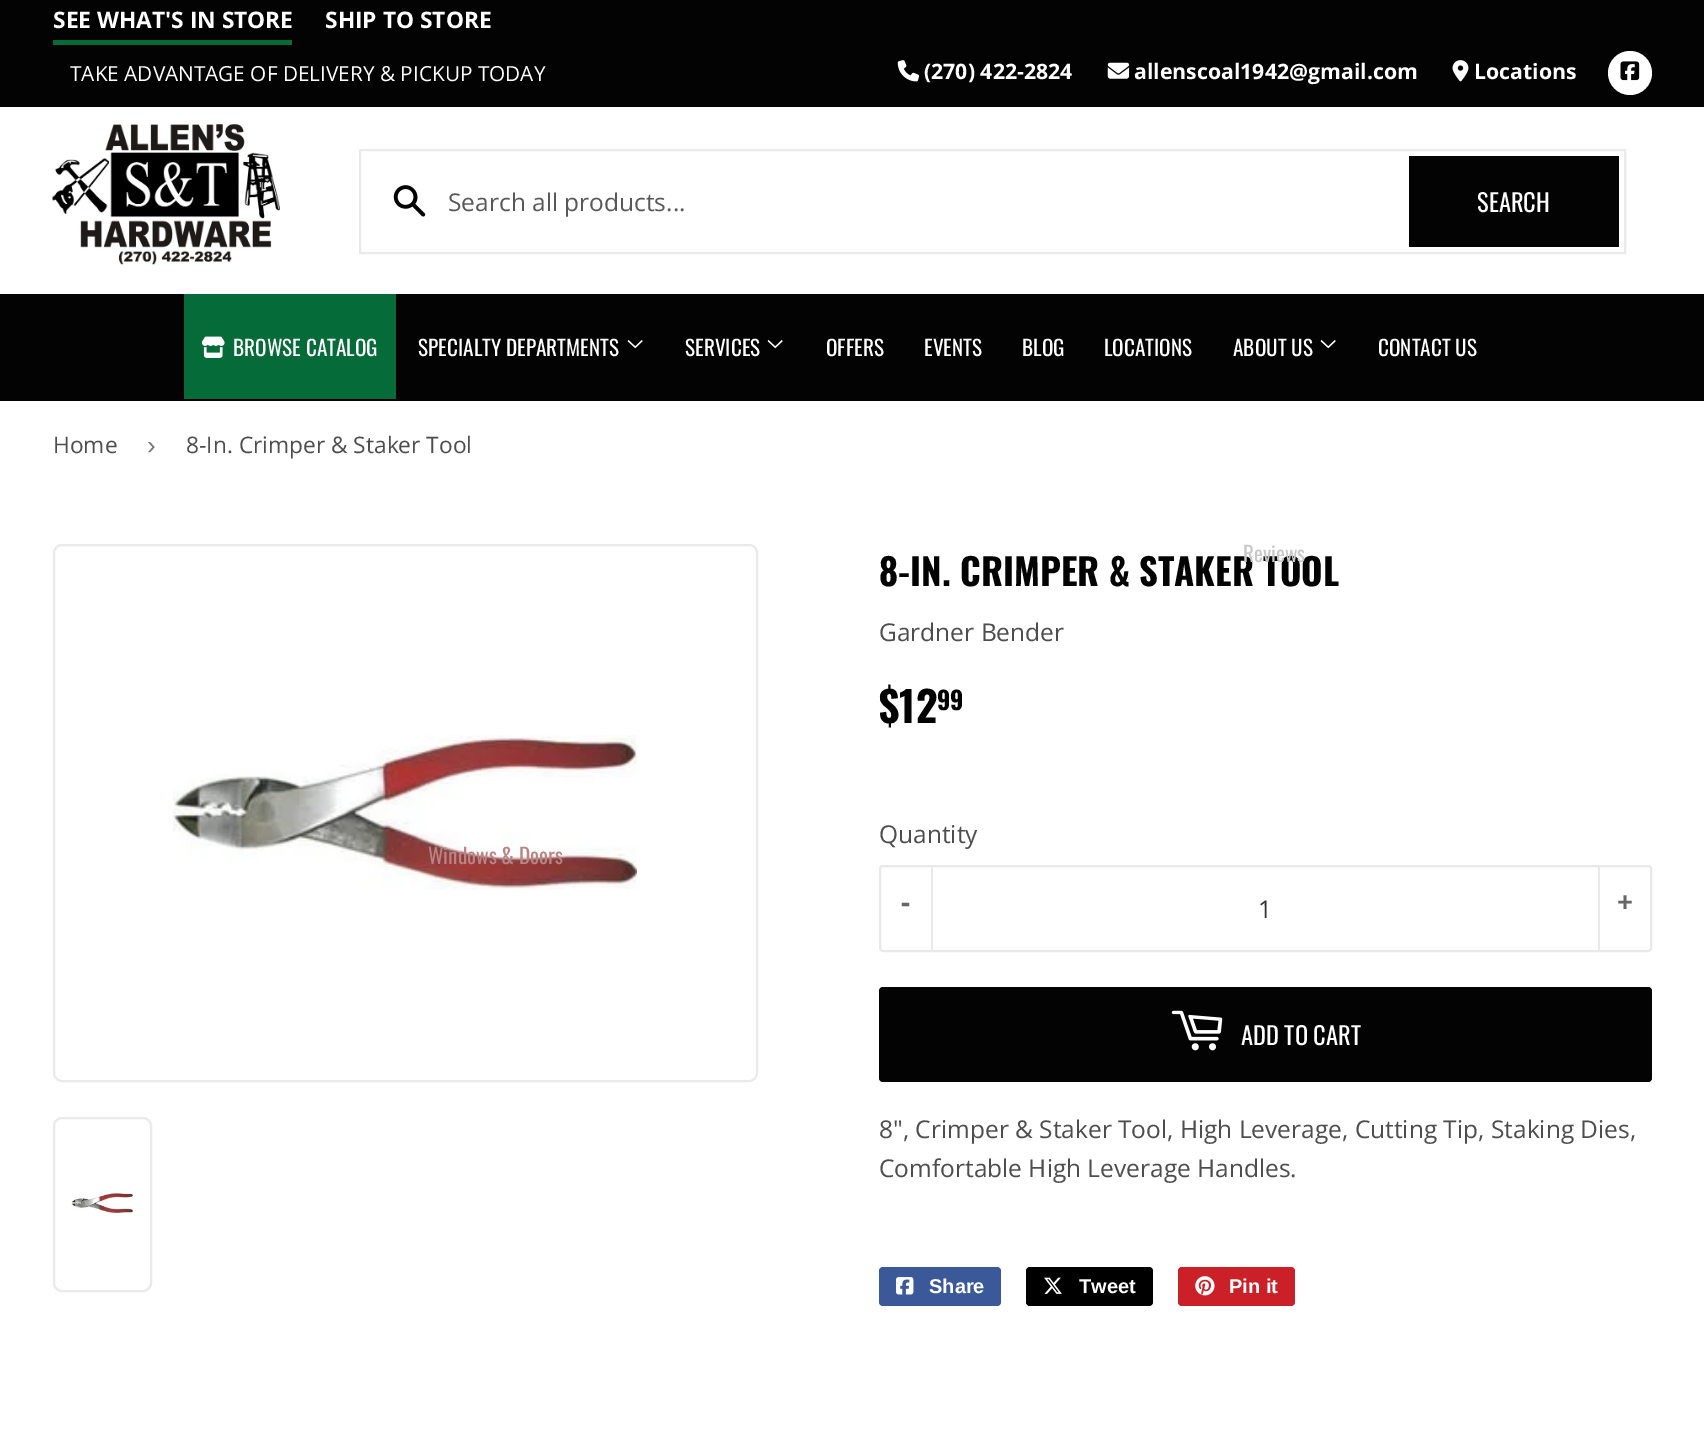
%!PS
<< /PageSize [1704 1431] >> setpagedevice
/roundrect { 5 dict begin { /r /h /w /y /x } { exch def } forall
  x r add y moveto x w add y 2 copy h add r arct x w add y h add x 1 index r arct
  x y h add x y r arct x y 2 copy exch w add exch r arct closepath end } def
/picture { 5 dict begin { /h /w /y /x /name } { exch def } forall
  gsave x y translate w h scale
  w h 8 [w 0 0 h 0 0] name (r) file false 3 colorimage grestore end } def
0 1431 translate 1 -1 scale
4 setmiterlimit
1 setgray
0 0 1704 1431 rectfill
0.012 setgray
0 0 1704 107 rectfill
/OpenSans-Bold [22.75 0 0 -22.75 0 0] selectfont
1 setgray
53 28 moveto (SEE WHAT'S IN STORE) show
0.02 0.42 0.22 setrgbcolor
53 40 239 5 rectfill
1 setgray
325 28 moveto (SHIP TO STORE) show
/OpenSans-Regular [20.8 0 0 -20.8 0 0] selectfont
70 81 moveto (TAKE ADVANTAGE OF DELIVERY & PICKUP TODAY) show
(img1.rgb) 897 60 22 22 picture
/OpenSans-Bold [21.25 0 0 -21.25 0 0] selectfont
924 79 moveto (\(270\) 422-2824) show
(img2.rgb) 1107 62 23 17 picture
1134 79 moveto (allenscoal1942@gmail.com) show
(img3.rgb) 1452 60 17 22 picture
1474 79 moveto (Locations) show
newpath 1630 73 22 0 360 arc closepath fill
(img4.rgb) 1620 61 20 20 picture
(img5.rgb) 52 124 228 141 picture
0.918 setgray
2 setlinewidth
360 150 1265 103 rectstroke
(img6.rgb) 393 185 33 32 picture
/OpenSans-Regular [24.5 0 0 -24.5 0 0] selectfont
0.345 setgray
448 211 moveto (Search all products...) show
0.012 setgray
1409 156 210 91 rectfill
/Oswald-Regular [24.5 0 0 -24.5 0 0] selectfont
1 setgray
1477 212 moveto (SEARCH) show
0.012 setgray
0 294 1704 107 rectfill
0.02 0.42 0.22 setrgbcolor
184 294 212 105 rectfill
(img7.rgb) 201 336 24 22 picture
/Oswald-Regular [21.25 0 0 -21.25 0 0] selectfont
1 setgray
233 356 moveto (BROWSE CATALOG) show
418 356 moveto (SPECIALTY DEPARTMENTS) show
(img8.rgb) 627 340 16 9 picture
0.918 setgray
54 545 703 536 8 roundrect stroke
(img9.rgb) 173 735 464 155 picture
0.725 0.522 0.518 setrgbcolor
428 864 moveto (Windows & Doors) show
1 setgray
685 356 moveto (SERVICES) show
(img8.rgb) 767 340 16 9 picture
826 356 moveto (OFFERS) show
924 356 moveto (EVENTS) show
1022 356 moveto (BLOG) show
1104 356 moveto (LOCATIONS) show
1233 356 moveto (ABOUT US) show
(img8.rgb) 1320 340 16 9 picture
/Oswald-Bold [36.75 0 0 -36.75 0 0] selectfont
0.012 setgray
879 586 moveto (8-IN. CRIMPER & STAKER TOOL) show
/Oswald-Regular [21.25 0 0 -21.25 0 0] selectfont
0.784 setgray
1243 562 moveto (Reviews) show
1 setgray
1378 356 moveto (CONTACT US) show
/OpenSans-Regular [22.75 0 0 -22.75 0 0] selectfont
0.302 setgray
53 453 moveto (Home) show
/LiberationSans-Regular [26 0 0 -26 0 0] selectfont
0.463 setgray
147 454 moveto (›) show
/OpenSans-Regular [22.75 0 0 -22.75 0 0] selectfont
0.302 setgray
186 453 moveto (8-In. Crimper & Staker Tool) show
0.918 setgray
54 1118 97 173 8 roundrect stroke
(img10.rgb) 71 1192 62 22 picture
/OpenSans-Regular [24.5 0 0 -24.5 0 0] selectfont
0.302 setgray
879 641 moveto (Gardner Bender) show
/Oswald-Bold [42 0 0 -42 0 0] selectfont
0.012 setgray
879 723 moveto ($12) show
/Oswald-Bold [25 0 0 -25 0 0] selectfont
937 710 moveto (99) show
/OpenSans-Regular [24.5 0 0 -24.5 0 0] selectfont
0.302 setgray
879 843 moveto (Quantity) show
0.914 setgray
880 866 771 85 3 roundrect stroke
931 866 2 84 rectfill
/OpenSans-Bold [28 0 0 -28 0 0] selectfont
0.4 setgray
901 912 moveto (-) show
/OpenSans-Regular [24.5 0 0 -24.5 0 0] selectfont
0.2 setgray
1258 918 moveto (1) show
0.914 setgray
1598 866 2 84 rectfill
/OpenSans-Bold [28 0 0 -28 0 0] selectfont
0.4 setgray
1617 912 moveto (+) show
0.012 setgray
879 987 773 95 4 roundrect fill
(img11.rgb) 1171 1010 52 41 picture
/Oswald-Regular [24.5 0 0 -24.5 0 0] selectfont
1 setgray
1241 1045 moveto (ADD TO CART) show
/OpenSans-Regular [24.5 0 0 -24.5 0 0] selectfont
0.302 setgray
879 1138 moveto (8", Crimper & Staker Tool, High Leverage, Cutting Tip, Staking Dies,) show
879 1177 moveto (Comfortable High Leverage Handles.) show
0.231 0.349 0.596 setrgbcolor
879 1267 122 39 4 roundrect fill
(img12.rgb) 896 1277 18 18 picture
/LiberationSans-Bold [20 0 0 -20 0 0] selectfont
1 setgray
929 1293 moveto (Share) show
0 setgray
1026 1267 127 39 4 roundrect fill
(img13.rgb) 1044 1277 18 17 picture
1 setgray
1079 1293 moveto (Tweet) show
0.796 0.125 0.153 setrgbcolor
1178 1267 117 39 4 roundrect fill
(img14.rgb) 1195 1276 20 20 picture
1 setgray
1229 1293 moveto (Pin it) show
showpage
